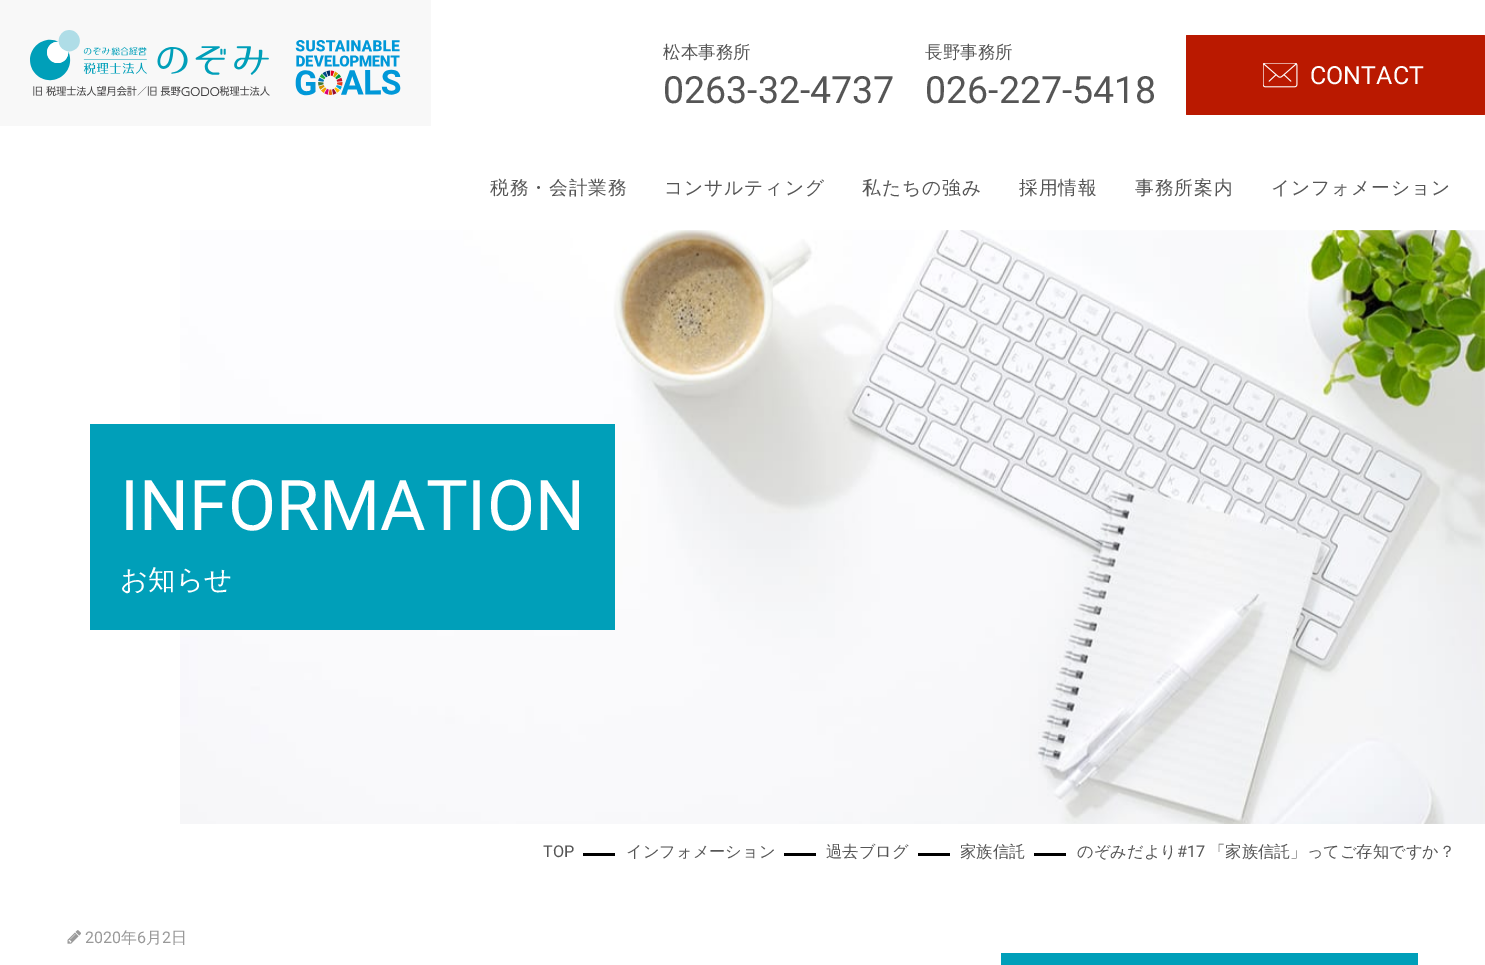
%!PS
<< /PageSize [1485 965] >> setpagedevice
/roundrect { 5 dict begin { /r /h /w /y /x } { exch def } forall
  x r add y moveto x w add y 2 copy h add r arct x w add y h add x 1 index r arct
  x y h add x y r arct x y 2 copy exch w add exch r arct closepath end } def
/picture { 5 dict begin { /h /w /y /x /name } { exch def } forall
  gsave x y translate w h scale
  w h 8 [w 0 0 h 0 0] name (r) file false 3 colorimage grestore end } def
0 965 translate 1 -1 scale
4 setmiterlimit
1 setgray
0 0 1485 965 rectfill
0.973 setgray
0 0 431 126 rectfill
(img1.rgb) 30 30 371 66 picture
/WenQuanYiZenHei-Medium [17.5 0 0 -17.5 0 0] selectfont
0.333 setgray
663 58 moveto (松本事務所) show
/Roboto-Regular [37.5 0 0 -37.5 0 0] selectfont
663 103 moveto (0263-32-4737) show
/WenQuanYiZenHei-Medium [17.5 0 0 -17.5 0 0] selectfont
925 58 moveto (長野事務所) show
/Roboto-Regular [37.5 0 0 -37.5 0 0] selectfont
925 103 moveto (026-227-5418) show
0.729 0.098 0 setrgbcolor
1186 35 299 80 1 roundrect fill
(img2.rgb) 1263 63 35 25 picture
/Roboto-Regular [25 0 0 -25 0 0] selectfont
1 setgray
1310 84 moveto (CONTACT) show
/WenQuanYiZenHei-Medium [18.75 0 0 -18.75 0 0] selectfont
0.333 setgray
490 194 moveto 0.9 0 (税務・会計業務) ashow
664 194 moveto 0.9 0 (コンサルティング) ashow
862 194 moveto 0.9 0 (私たちの強み) ashow
1019 194 moveto 0.9 0 (採用情報) ashow
1135 194 moveto 0.9 0 (事務所案内) ashow
1271 194 moveto 0.9 0 (インフォメーション) ashow
(img3.rgb) 180 230 1305 594 picture
0 0.624 0.725 setrgbcolor
90 424 525 206 rectfill
/Roboto-Regular [70 0 0 -70 0 0] selectfont
1 setgray
120 530 moveto (INFORMATION) show
/WenQuanYiZenHei-Medium [27.5 0 0 -27.5 0 0] selectfont
120 589 moveto (お知らせ) show
/Roboto-Regular [16.25 0 0 -16.25 0 0] selectfont
0.333 setgray
543 857 moveto (TOP) show
0 setgray
583 853 32 3 rectfill
/WenQuanYiZenHei-Medium [16.25 0 0 -16.25 0 0] selectfont
0.333 setgray
626 857 moveto (インフォメーション) show
0 setgray
784 853 32 3 rectfill
0.333 setgray
826 857 moveto (過去ブログ) show
0 setgray
918 853 32 3 rectfill
0.333 setgray
960 857 moveto (家族信託) show
0 setgray
1034 853 32 3 rectfill
0.333 setgray
1077 857 moveto (のぞみだより) show
/Roboto-Regular [16.25 0 0 -16.25 0 0] selectfont
1177 857 moveto (#17) show
/WenQuanYiZenHei-Medium [16.25 0 0 -16.25 0 0] selectfont
1209 857 moveto (「家族信託」ってご存知ですか？) show
(img4.rgb) 67 930 14 14 picture
/Roboto-Regular [16 0 0 -16 0 0] selectfont
0.6 setgray
85 943 moveto (2020) show
/WenQuanYiZenHei-Medium [16 0 0 -16 0 0] selectfont
121 943 moveto (年) show
/Roboto-Regular [16 0 0 -16 0 0] selectfont
137 943 moveto (6) show
/WenQuanYiZenHei-Medium [16 0 0 -16 0 0] selectfont
146 943 moveto (月) show
/Roboto-Regular [16 0 0 -16 0 0] selectfont
162 943 moveto (2) show
/WenQuanYiZenHei-Medium [16 0 0 -16 0 0] selectfont
171 943 moveto (日) show
0 0.624 0.725 setrgbcolor
1001 953 417 12 rectfill
showpage
